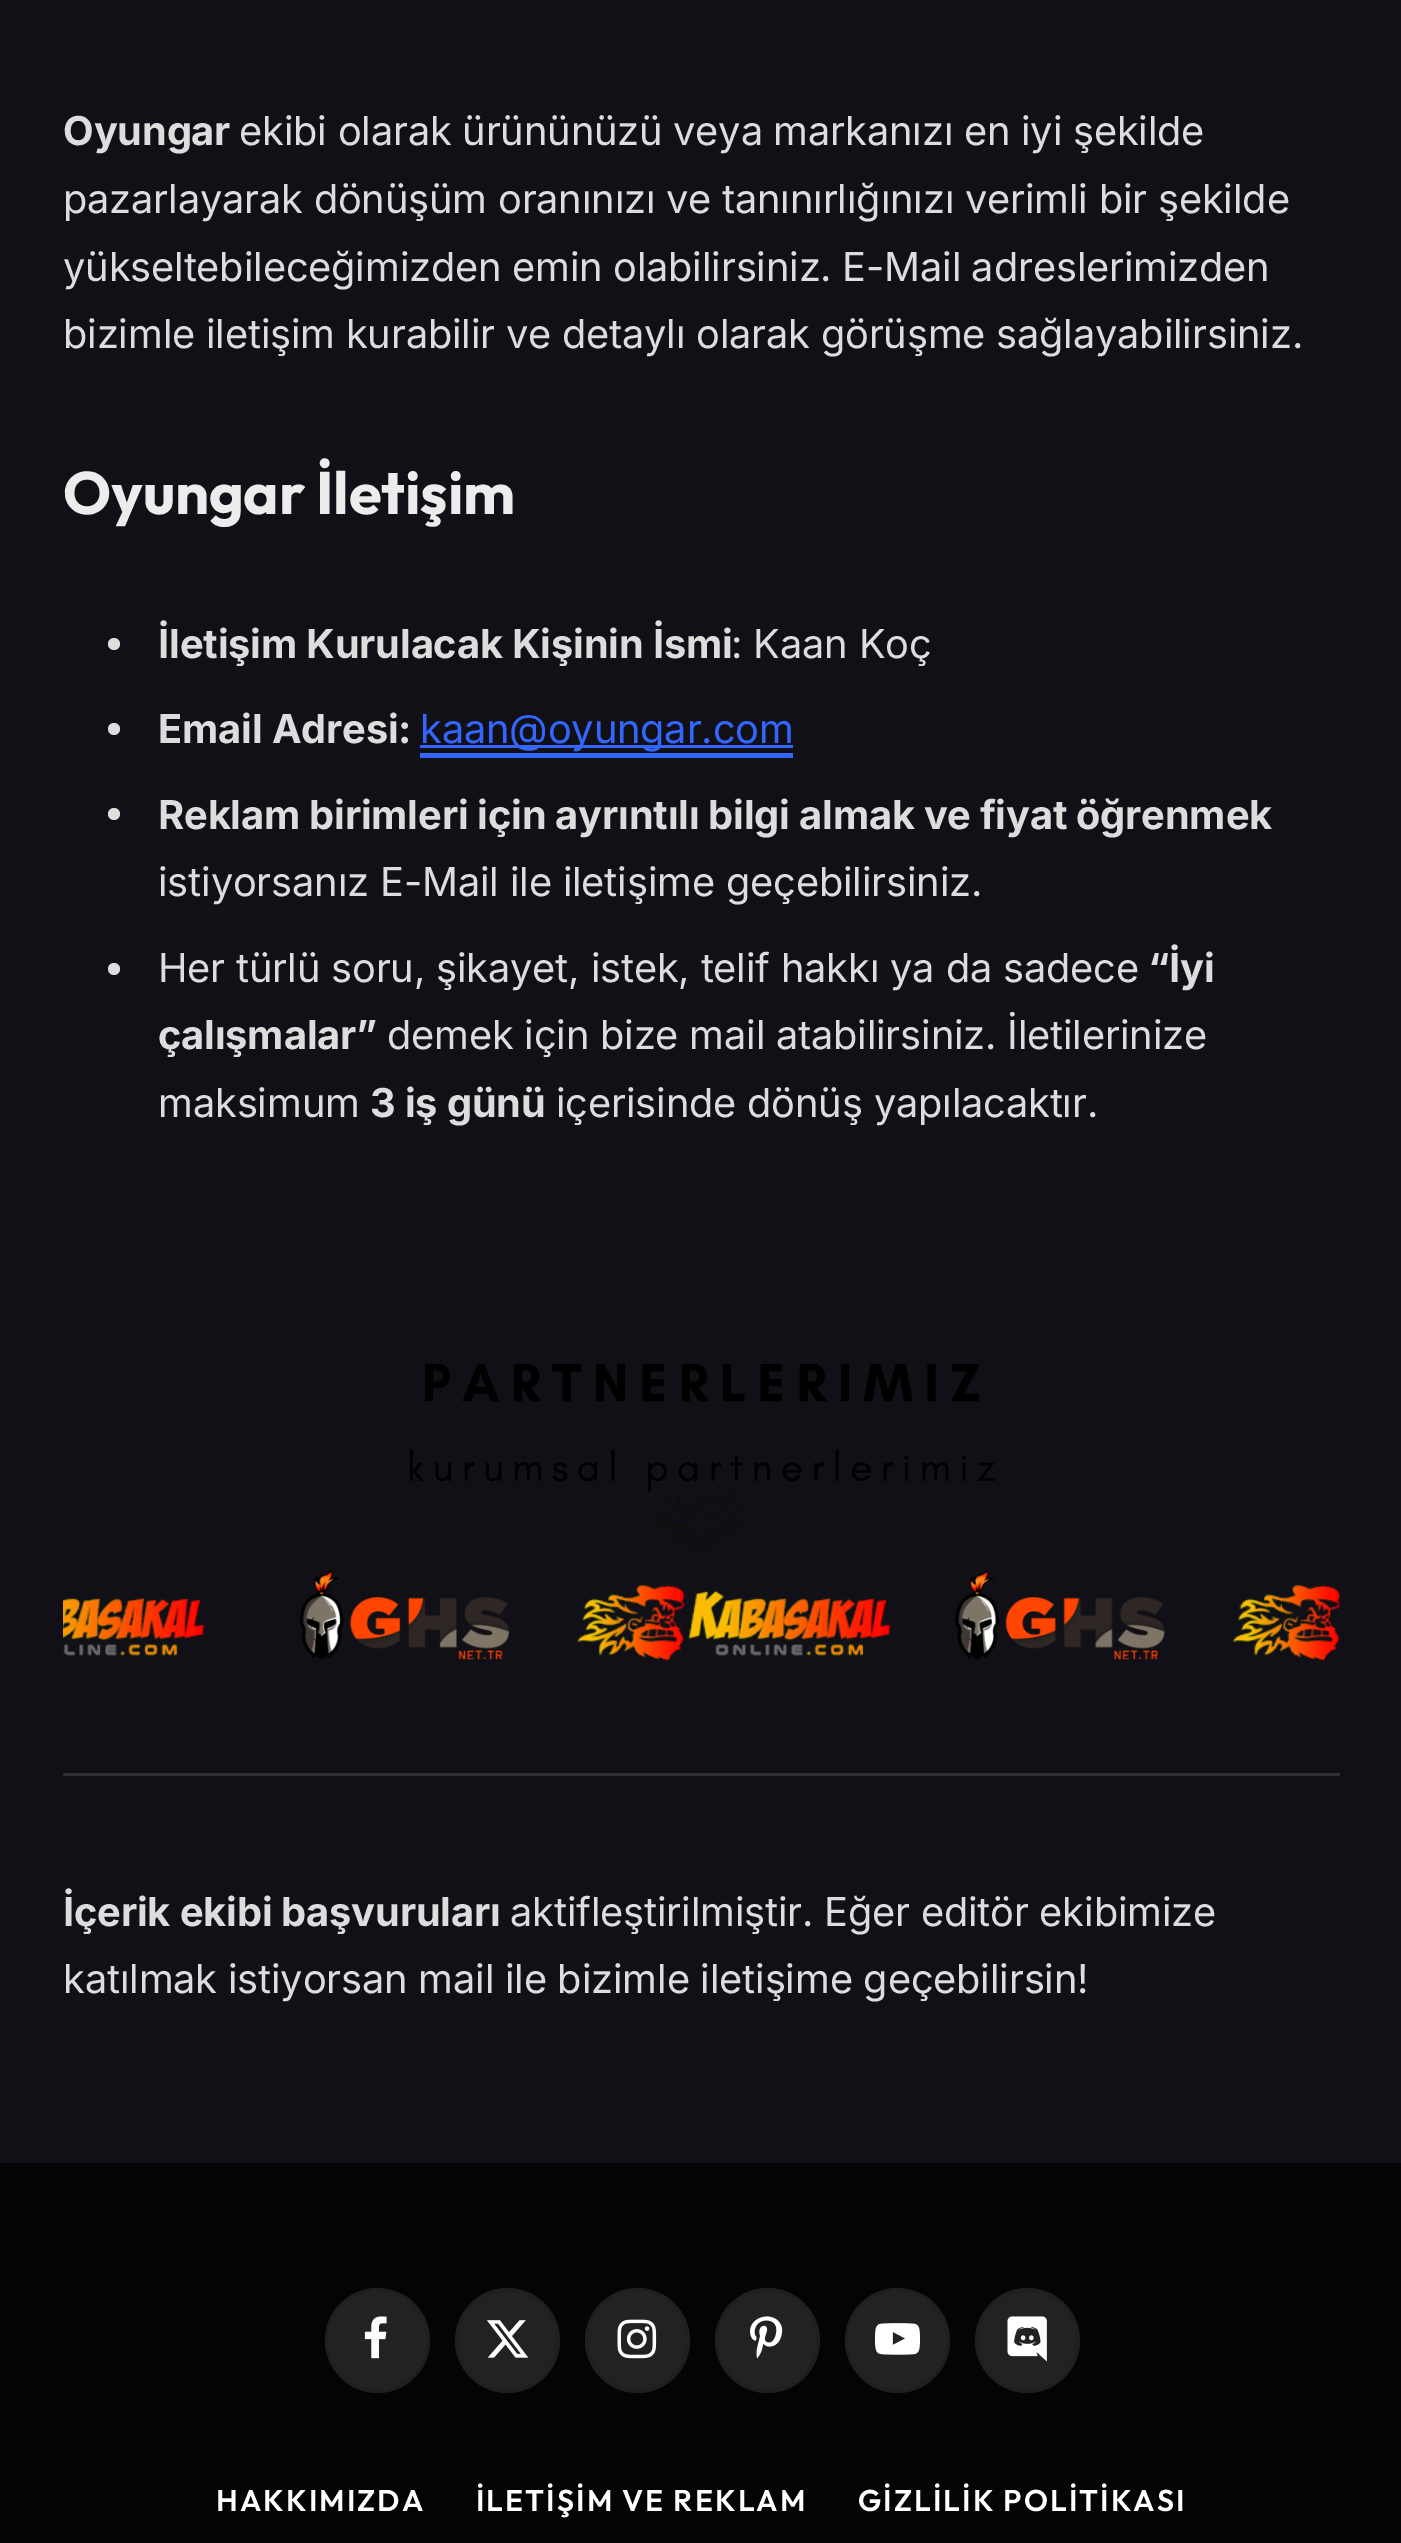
%!PS
<< /PageSize [1401 2543] /PageUsesTransparency true >> setpagedevice
/alpha { dup .setfillconstantalpha .setstrokeconstantalpha } def
/picture { 5 dict begin { /h /w /y /x /name } { exch def } forall
  gsave x y translate w h scale
  w h 8 [w 0 0 h 0 0] name (r) file false 3 colorimage grestore end } def
0 .pushpdf14devicefilter
0 2543 translate 1 -1 scale
4 setmiterlimit
0.063 0.063 0.086 setrgbcolor
0 0 1401 2543 rectfill
/Inter-Bold [39.85 0 0 -39.85 0 0] selectfont
0.867 setgray
63 145 moveto -0.2 0 (Oyungar) ashow
/Inter-Regular [39.85 0 0 -39.85 0 0] selectfont
239 145 moveto -0.25 0 32 -0.2 0 (ekibi olarak ürününüzü veya markanızı en iyi şekilde) awidthshow
63 213 moveto -0.25 0 32 -0.2 0 (pazarlayarak dönüşüm oranınızı ve tanınırlığınızı verimli bir şekilde) awidthshow
63 281 moveto -0.5 0 32 -0.2 0 (yükseltebileceğimizden emin olabilirsiniz. E-Mail adreslerimizden) awidthshow
63 348 moveto -0.25 0 32 -0.2 0 (bizimle iletişim kurabilir ve detaylı olarak görüşme sağlayabilirsiniz.) awidthshow
/Outfit-Bold [59.75 0 0 -59.75 0 0] selectfont
0.925 setgray
63 514 moveto -0.2 0 (Oyungar İletişim) ashow
0.867 setgray
newpath 114 644 6 0 360 arc closepath fill
/Inter-Bold [39.85 0 0 -39.85 0 0] selectfont
158 658 moveto -0.2 0 (İletişim Kurulacak Kişinin İsmi) ashow
/Inter-Regular [39.85 0 0 -39.85 0 0] selectfont
731 658 moveto -0.2 0 (: Kaan Koç) ashow
newpath 114 729 6 0 360 arc closepath fill
/Inter-Bold [39.85 0 0 -39.85 0 0] selectfont
158 743 moveto -0.2 0 (Email Adresi:) ashow
0.2 0.4 1 setrgbcolor
420 745 373 3 rectfill
/Inter-Regular [39.85 0 0 -39.85 0 0] selectfont
420 743 moveto -0.2 0 (kaan@oyungar.com) ashow
420 753 373 5 rectfill
0.867 setgray
newpath 114 814 6 0 360 arc closepath fill
/Inter-Bold [39.85 0 0 -39.85 0 0] selectfont
158 829 moveto -0.25 0 32 -0.2 0 (Reklam birimleri için ayrıntılı bilgi almak ve fiyat öğrenmek) awidthshow
/Inter-Regular [39.85 0 0 -39.85 0 0] selectfont
158 896 moveto -0.2 0 (istiyorsanız E-Mail ile iletişime geçebilirsiniz.) ashow
newpath 114 969 6 0 360 arc closepath fill
158 982 moveto -0.2 0 (Her türlü soru, şikayet, istek, telif hakkı ya da sadece) ashow
/Inter-Bold [39.85 0 0 -39.85 0 0] selectfont
1148 982 moveto -0.2 0 (“İyi) ashow
158 1049 moveto -0.2 0 (çalışmalar”) ashow
/Inter-Regular [39.85 0 0 -39.85 0 0] selectfont
387 1049 moveto -0.25 0 32 -0.2 0 (demek için bize mail atabilirsiniz. İletilerinize) awidthshow
158 1117 moveto -0.2 0 (maksimum) ashow
/Inter-Bold [39.85 0 0 -39.85 0 0] selectfont
370 1117 moveto -0.2 0 (3 iş günü) ashow
/Inter-Regular [39.85 0 0 -39.85 0 0] selectfont
556 1117 moveto -0.2 0 (içerisinde dönüş yapılacaktır.) ashow
(img1.rgb) 63 1364 1277 297 picture
0.184 0.184 0.204 setrgbcolor
63 1773 1277 3 rectfill
/Inter-Bold [39.85 0 0 -39.85 0 0] selectfont
0.867 setgray
63 1926 moveto -0.2 0 (İçerik ekibi başvuruları) ashow
/Inter-Regular [39.85 0 0 -39.85 0 0] selectfont
510 1926 moveto -0.25 0 32 -0.2 0 (aktifleştirilmiştir. Eğer editör ekibimize) awidthshow
63 1993 moveto -0.25 0 32 -0.2 0 (katılmak istiyorsan mail ile bizimle iletişime geçebilirsin!) awidthshow
0.016 setgray
0 2163 1401 380 rectfill
0.133 setgray
newpath 377.5 2340.5 52.5 0 360 arc closepath fill
0.09 alpha
0 setgray
3 setlinewidth
newpath 377.5 2340.5 51 0 360 arc closepath stroke
1 alpha
(img2.rgb) 364 2316 23 43 picture
0.133 setgray
newpath 507.5 2340.5 52.5 0 360 arc closepath fill
0.09 alpha
0 setgray
newpath 507.5 2340.5 51 0 360 arc closepath stroke
1 alpha
(img3.rgb) 487 2320 42 38 picture
0.133 setgray
newpath 637.5 2340.5 52.5 0 360 arc closepath fill
0.09 alpha
0 setgray
newpath 637.5 2340.5 51 0 360 arc closepath stroke
1 alpha
(img4.rgb) 617 2319 40 40 picture
0.133 setgray
newpath 767.5 2340.5 52.5 0 360 arc closepath fill
0.09 alpha
0 setgray
newpath 767.5 2340.5 51 0 360 arc closepath stroke
1 alpha
(img5.rgb) 750 2316 33 43 picture
0.133 setgray
newpath 897.5 2340.5 52.5 0 360 arc closepath fill
0.09 alpha
0 setgray
newpath 897.5 2340.5 51 0 360 arc closepath stroke
1 alpha
(img6.rgb) 875 2323 45 32 picture
0.133 setgray
newpath 1027.5 2340.5 52.5 0 360 arc closepath fill
0.09 alpha
0 setgray
newpath 1027.5 2340.5 51 0 360 arc closepath stroke
1 alpha
(img7.rgb) 1007 2316 40 46 picture
/Outfit-SemiBold [30 0 0 -30 0 0] selectfont
1 setgray
216 2511 moveto 2.1 0 (HAKKIMIZDA) ashow
476 2511 moveto 2.1 0 (İLETİŞİM VE REKLAM) ashow
858 2511 moveto 2.1 0 (GİZLİLİK POLİTİKASI) ashow
.poppdf14devicefilter showpage
